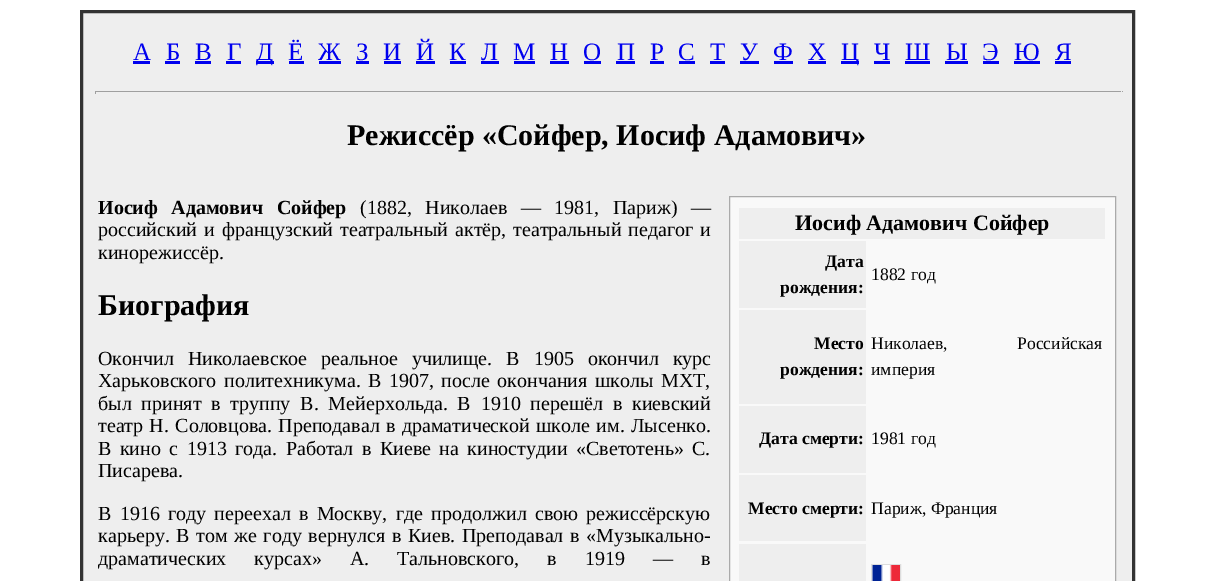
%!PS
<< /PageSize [1213 581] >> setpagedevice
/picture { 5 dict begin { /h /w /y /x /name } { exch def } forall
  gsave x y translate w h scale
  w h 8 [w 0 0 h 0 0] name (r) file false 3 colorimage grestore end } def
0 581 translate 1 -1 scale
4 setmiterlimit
1 setgray
0 0 1213 581 rectfill
0.933 setgray
newpath 81.5 11.5 moveto 1133.5 11.5 lineto 1133.5 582.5 lineto 81.5 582.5 lineto closepath gsave fill grestore
0.2 setgray
3 setlinewidth
stroke
/LiberationSerif-Regular [25 0 0 -25 0 0] selectfont
0 0 0.933 setrgbcolor
133 60 moveto (А) show
133 61 17 3 rectfill
166 60 moveto (Б) show
165 61 15 3 rectfill
195 60 moveto (В) show
195 61 16 3 rectfill
227 60 moveto (Г) show
226 61 15 3 rectfill
256 61 18 3 rectfill
256 60 moveto (Д) show
288 60 moveto (Ё) show
289 61 15 3 rectfill
318 60 moveto (Ж) show
319 61 22 3 rectfill
356 60 moveto (З) show
356 61 13 3 rectfill
383 60 moveto (И) show
384 61 17 3 rectfill
416 60 moveto (Й) show
416 61 19 3 rectfill
449 60 moveto (К) show
450 61 16 3 rectfill
481 60 moveto (Л) show
481 61 18 3 rectfill
513 60 moveto (М) show
514 61 21 3 rectfill
550 60 moveto (Н) show
550 61 19 3 rectfill
583 60 moveto (О) show
584 61 17 3 rectfill
617 60 moveto (П) show
616 61 19 3 rectfill
650 60 moveto (Р) show
650 61 14 3 rectfill
678 60 moveto (С) show
679 61 16 3 rectfill
710 60 moveto (Т) show
710 61 15 3 rectfill
740 60 moveto (У) show
740 61 19 3 rectfill
773 60 moveto (Ф) show
774 61 19 3 rectfill
808 60 moveto (Х) show
808 61 18 3 rectfill
841 61 18 3 rectfill
841 60 moveto (Ц) show
874 60 moveto (Ч) show
874 61 16 3 rectfill
905 60 moveto (Ш) show
905 61 25 3 rectfill
946 60 moveto (Ы) show
945 61 23 3 rectfill
982 60 moveto (Э) show
983 61 16 3 rectfill
1014 60 moveto (Ю) show
1014 61 26 3 rectfill
1055 60 moveto (Я) show
1055 61 16 3 rectfill
0.624 setgray
95 91 1028 1 rectfill
0.933 setgray
1121 91 1 3 rectfill
0.624 setgray
95 91 1 3 rectfill
/LiberationSerif-Bold [30 0 0 -30 0 0] selectfont
0 setgray
347 145 moveto (Режиссёр «Сойфер, Иосиф Адамович») show
/LiberationSerif-Bold [20 0 0 -20 0 0] selectfont
98 214 moveto 8.5 0 32 (Иосиф Адамович Сойфер) widthshow
/LiberationSerif-Regular [20 0 0 -20 0 0] selectfont
360 214 moveto 8.5 0 32 (\(1882, Николаев — 1981, Париж\) —) widthshow
98 236 moveto 2 0 32 (российский и французский театральный актёр, театральный педагог и) widthshow
98 259 moveto (кинорежиссёр.) show
0.976 setgray
newpath 729.5 196.5 moveto 1115.5 196.5 lineto 1115.5 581.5 lineto 729.5 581.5 lineto closepath gsave fill grestore
0.667 setgray
1 setlinewidth
stroke
0.933 setgray
739 208 366 31 rectfill
/LiberationSerif-Bold [22 0 0 -22 0 0] selectfont
0 setgray
795 230 moveto (Иосиф Адамович Сойфер) show
0.933 setgray
739 241 127 67 rectfill
/LiberationSerif-Bold [17.6 0 0 -17.6 0 0] selectfont
0 setgray
825 267 moveto (Дата) show
780 293 moveto (рождения:) show
/LiberationSerif-Regular [17.6 0 0 -17.6 0 0] selectfont
871 280 moveto (1882 год) show
0.933 setgray
739 310 127 94 rectfill
/LiberationSerif-Bold [17.6 0 0 -17.6 0 0] selectfont
0 setgray
814 349 moveto (Место) show
780 375 moveto (рождения:) show
/LiberationSerif-Regular [17.6 0 0 -17.6 0 0] selectfont
871 349 moveto 65 0 32 (Николаев, Российская) widthshow
871 375 moveto (империя) show
0.933 setgray
739 406 127 67 rectfill
/LiberationSerif-Bold [17.6 0 0 -17.6 0 0] selectfont
0 setgray
759 444 moveto (Дата смерти:) show
/LiberationSerif-Regular [17.6 0 0 -17.6 0 0] selectfont
871 444 moveto (1981 год) show
0.933 setgray
739 475 127 66 rectfill
/LiberationSerif-Bold [17.6 0 0 -17.6 0 0] selectfont
0 setgray
748 514 moveto (Место смерти:) show
/LiberationSerif-Regular [17.6 0 0 -17.6 0 0] selectfont
871 514 moveto (Париж, Франция) show
0.933 setgray
739 544 127 37 rectfill
0.867 setgray
871.5 564.5 29 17 rectstroke
(img1.rgb) 872 565 28 16 picture
/LiberationSerif-Bold [30 0 0 -30 0 0] selectfont
0 setgray
98 315 moveto (Биография) show
/LiberationSerif-Regular [20 0 0 -20 0 0] selectfont
98 365 moveto 9 0 32 (Окончил Николаевское реальное училище. В 1905 окончил курс) widthshow
98 387 moveto 2.5 0 32 (Харьковского политехникума. В 1907, после окончания школы МХТ,) widthshow
98 410 moveto 4.75 0 32 (был принят в труппу В. Мейерхольда. В 1910 перешёл в киевский) widthshow
98 432 moveto 1.25 0 32 (театр Н. Соловцова. Преподавал в драматической школе им. Лысенко.) widthshow
98 455 moveto 3.4 0 32 (В кино с 1913 года. Работал в Киеве на киностудии «Светотень» С.) widthshow
98 477 moveto (Писарева.) show
98 520 moveto 3.25 0 32 (В 1916 году переехал в Москву, где продолжил свою режиссёрскую) widthshow
98 542 moveto 1.6 0 32 (карьеру. В том же году вернулся в Киев. Преподавал в «Музыкально-) widthshow
98 565 moveto 23 0 32 (драматических курсах» А. Тальновского, в 1919 — в) widthshow
showpage
